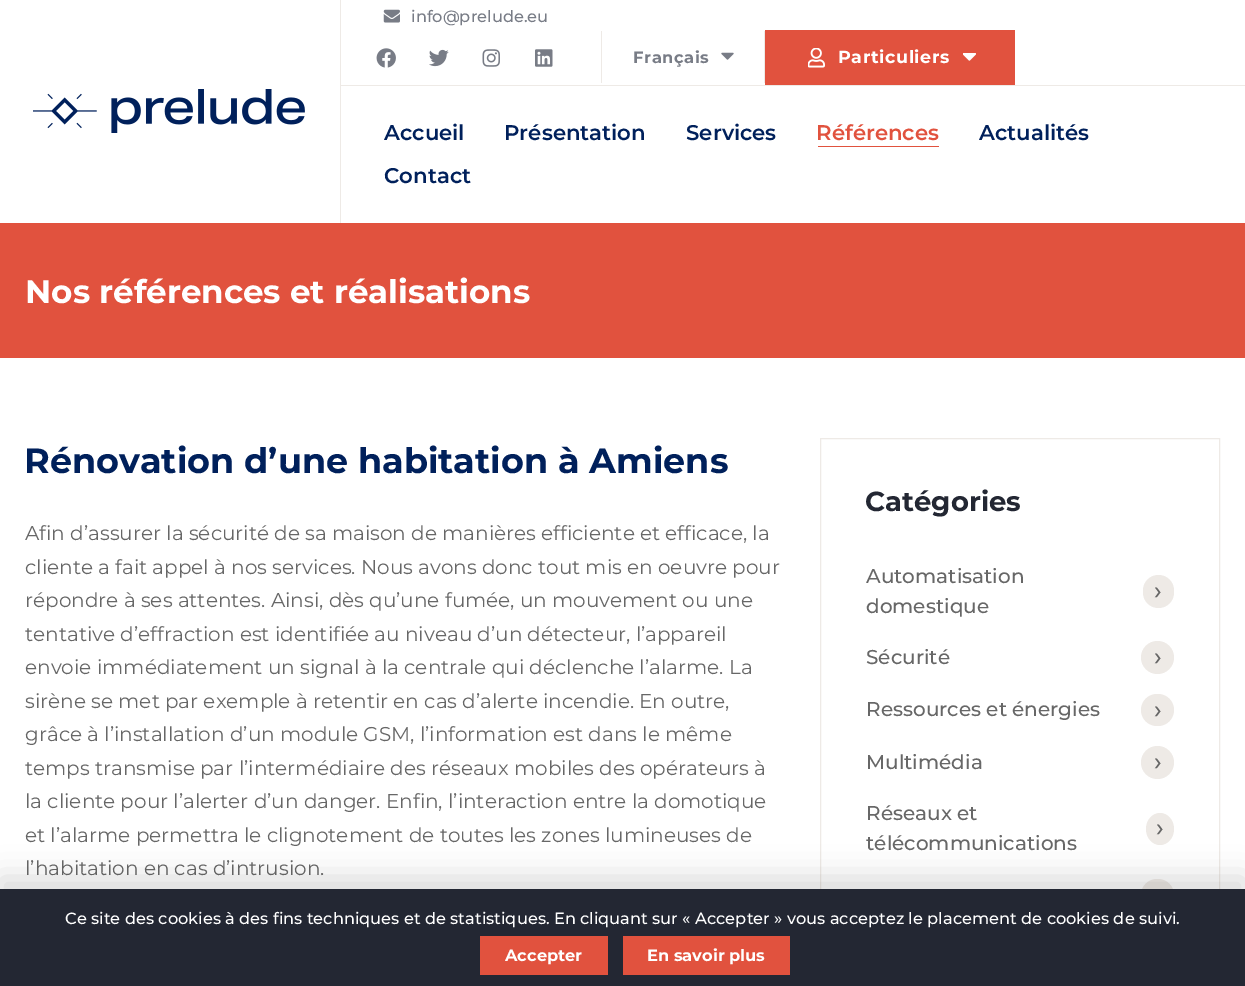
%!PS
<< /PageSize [1245 986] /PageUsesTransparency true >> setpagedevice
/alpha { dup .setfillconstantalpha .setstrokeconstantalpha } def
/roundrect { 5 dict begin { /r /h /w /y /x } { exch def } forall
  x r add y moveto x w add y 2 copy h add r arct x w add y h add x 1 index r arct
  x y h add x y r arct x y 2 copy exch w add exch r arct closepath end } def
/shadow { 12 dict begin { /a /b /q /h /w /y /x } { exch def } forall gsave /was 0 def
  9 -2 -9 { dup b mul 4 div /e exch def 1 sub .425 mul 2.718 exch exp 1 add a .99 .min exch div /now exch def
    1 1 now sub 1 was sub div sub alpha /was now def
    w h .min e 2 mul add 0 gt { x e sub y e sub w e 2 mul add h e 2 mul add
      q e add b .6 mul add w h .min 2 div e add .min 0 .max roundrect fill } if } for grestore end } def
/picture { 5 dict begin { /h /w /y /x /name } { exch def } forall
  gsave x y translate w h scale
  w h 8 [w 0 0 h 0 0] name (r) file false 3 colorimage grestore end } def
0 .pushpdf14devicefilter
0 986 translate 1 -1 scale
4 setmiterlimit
1 setgray
0 0 1245 986 rectfill
0.933 0.918 0.902 setrgbcolor
340 0 1 223 rectfill
(img1.rgb) 33 89 272 44 picture
341 85 904 1 rectfill
(img2.rgb) 383 9 17 14 picture
/Montserrat-Medium [16.25 0 0 -16.25 0 0] selectfont
0.471 0.486 0.525 setrgbcolor
411 22 moveto (info@prelude.eu) show
(img3.rgb) 376 48 20 20 picture
(img4.rgb) 429 49 20 18 picture
(img5.rgb) 482 49 18 18 picture
(img6.rgb) 535 49 18 18 picture
0.933 0.918 0.902 setrgbcolor
764 31 1 52 rectfill
601 31 1 52 rectfill
/Montserrat-Bold [16.25 0 0 -16.25 0 0] selectfont
0.471 0.486 0.525 setrgbcolor
633 63 moveto 0.6 0 (Français) ashow
(img7.rgb) 721 52 13 8 picture
0.882 0.322 0.243 setrgbcolor
765 30 250 55 rectfill
(img8.rgb) 808 48 17 20 picture
/Montserrat-Bold [17.5 0 0 -17.5 0 0] selectfont
1 setgray
838 63 moveto 0.6 0 (Particuliers) ashow
(img9.rgb) 963 53 13 8 picture
/Montserrat-SemiBold [21.25 0 0 -21.25 0 0] selectfont
0 0.125 0.357 setrgbcolor
384 140 moveto (Accueil) show
504 140 moveto (Présentation) show
686 140 moveto (Services) show
0.882 0.322 0.243 setrgbcolor
816 140 moveto (Références) show
818 146 121 1 rectfill
0 0.125 0.357 setrgbcolor
979 140 moveto (Actualités) show
384 183 moveto (Contact) show
0.882 0.322 0.243 setrgbcolor
0 223 1245 135 rectfill
/Montserrat-Bold [32.5 0 0 -32.5 0 0] selectfont
1 setgray
25 303 moveto (Nos références et réalisations) show
/Montserrat-Bold [35 0 0 -35 0 0] selectfont
0 0.125 0.357 setrgbcolor
24 473 moveto (Rénovation d’une habitation à Amiens) show
/Montserrat-Regular [20 0 0 -20 0 0] selectfont
0.404 setgray
25 540 moveto (Afin d’assurer la sécurité de sa maison de manières efficiente et efficace, la) show
25 574 moveto (cliente a fait appel à nos services. Nous avons donc tout mis en oeuvre pour) show
25 607 moveto (répondre à ses attentes. Ainsi, dès qu’une fumée, un mouvement ou une) show
25 641 moveto (tentative d’effraction est identifiée au niveau d’un détecteur, l’appareil) show
25 674 moveto (envoie immédiatement un signal à la centrale qui déclenche l’alarme. La) show
25 708 moveto (sirène se met par exemple à retentir en cas d’alerte incendie. En outre,) show
25 741 moveto (grâce à l’installation d’un module GSM, l’information est dans le même) show
25 775 moveto (temps transmise par l’intermédiaire des réseaux mobiles des opérateurs à) show
25 808 moveto (la cliente pour l’alerter d’un danger. Enfin, l’interaction entre la domotique) show
25 842 moveto (et l’alarme permettra le clignotement de toutes les zones lumineuses de) show
25 875 moveto (l’habitation en cas d’intrusion.) show
0.933 0.918 0.902 setrgbcolor
820.5 438.5 399 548 rectstroke
/Montserrat-Bold [27.5 0 0 -27.5 0 0] selectfont
0.137 0.153 0.2 setrgbcolor
865 511 moveto (Catégories) show
/Montserrat-Medium [20 0 0 -20 0 0] selectfont
0.404 setgray
866 583 moveto (Automatisation) show
0.933 0.918 0.902 setrgbcolor
1143 575 31 33 15.5 roundrect fill
/Montserrat-Medium [25 0 0 -25 0 0] selectfont
0.404 setgray
1154 599 moveto (›) show
/Montserrat-Medium [20 0 0 -20 0 0] selectfont
866 613 moveto (domestique) show
866 664 moveto (Sécurité) show
0.933 0.918 0.902 setrgbcolor
newpath 1157.5 657.5 16.5 0 360 arc closepath fill
/Montserrat-Medium [25 0 0 -25 0 0] selectfont
0.404 setgray
1154 665 moveto (›) show
/Montserrat-Medium [20 0 0 -20 0 0] selectfont
866 716 moveto (Ressources et énergies) show
0.933 0.918 0.902 setrgbcolor
1141 694 33 32 16 roundrect fill
/Montserrat-Medium [25 0 0 -25 0 0] selectfont
0.404 setgray
1154 718 moveto (›) show
/Montserrat-Medium [20 0 0 -20 0 0] selectfont
866 769 moveto (Multimédia) show
0.933 0.918 0.902 setrgbcolor
newpath 1157.5 762.5 16.5 0 360 arc closepath fill
/Montserrat-Medium [25 0 0 -25 0 0] selectfont
0.404 setgray
1154 770 moveto (›) show
/Montserrat-Medium [20 0 0 -20 0 0] selectfont
866 820 moveto (Réseaux et) show
0.933 0.918 0.902 setrgbcolor
newpath 1160 813 moveto 1167.5 813 1174 820 1174 829 curveto 1174 838 1167.5 845 1160 845 curveto 1152.5 845 1146 838 1146 829 curveto 1146 820 1152.5 813 1160 813 curveto closepath fill
/Montserrat-Medium [25 0 0 -25 0 0] selectfont
0.404 setgray
1156 836 moveto (›) show
/Montserrat-Medium [20 0 0 -20 0 0] selectfont
866 850 moveto (télécommunications) show
0.933 0.918 0.902 setrgbcolor
1141 879 33 32 16 roundrect fill
0 setgray
0 878 1245 97 0 15 0.15 shadow
0.137 0.153 0.2 setrgbcolor
0 889 1245 97 rectfill
/Montserrat-Medium [16.25 0 0 -16.25 0 0] selectfont
1 setgray
65 924 moveto (Ce site des cookies à des fins techniques et de statistiques. En cliquant sur « Accepter » vous acceptez le placement de cookies de suivi.) show
0.882 0.322 0.243 setrgbcolor
480 936 128 39 rectfill
/Montserrat-Bold [16.25 0 0 -16.25 0 0] selectfont
1 setgray
505 961 moveto (Accepter) show
0.882 0.322 0.243 setrgbcolor
623 936 167 39 rectfill
1 setgray
647 961 moveto (En savoir plus) show
.poppdf14devicefilter showpage
